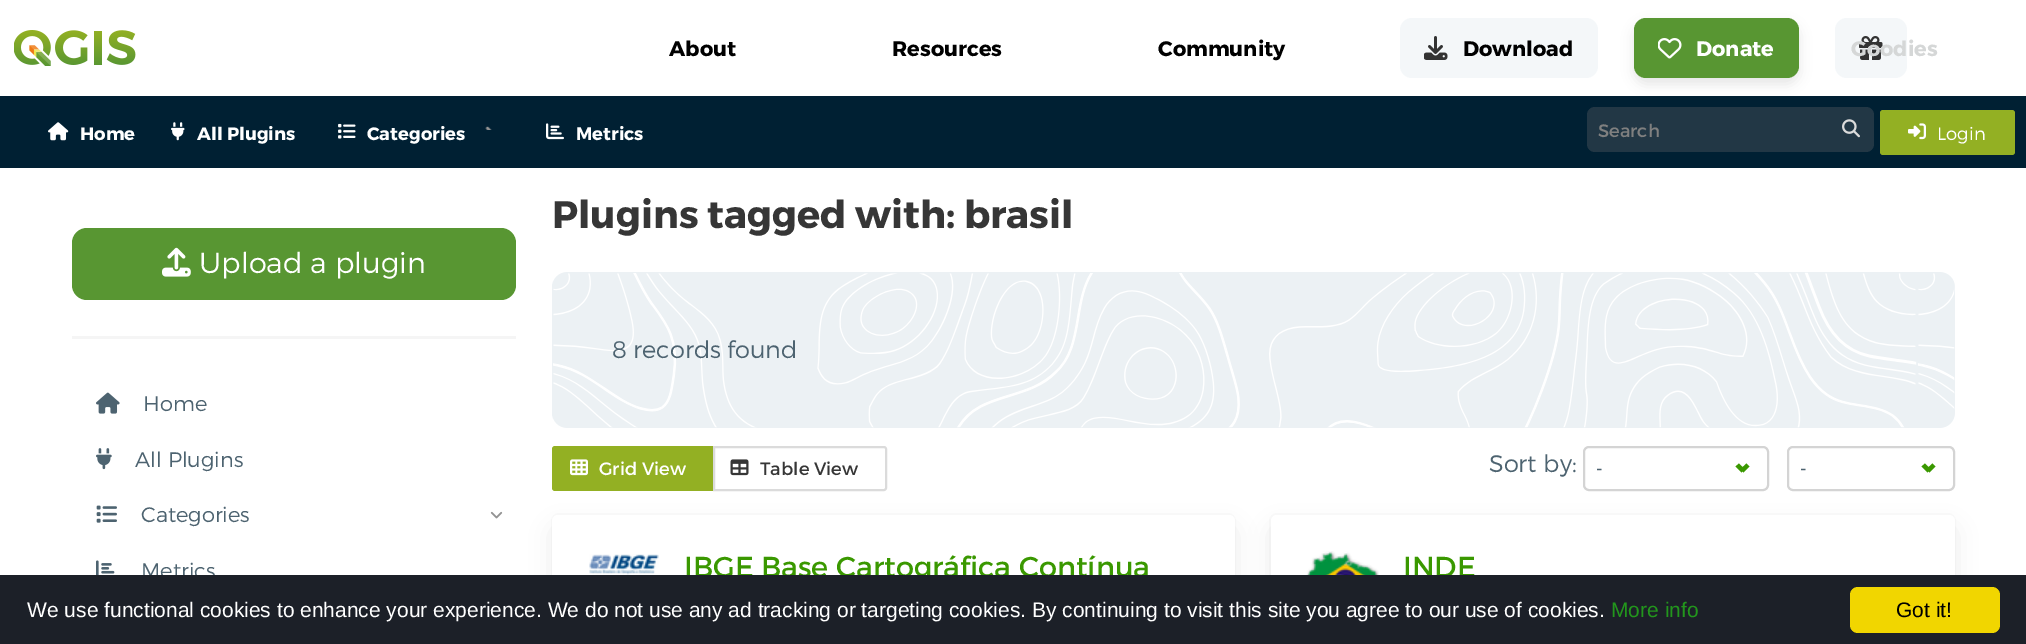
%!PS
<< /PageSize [2026 644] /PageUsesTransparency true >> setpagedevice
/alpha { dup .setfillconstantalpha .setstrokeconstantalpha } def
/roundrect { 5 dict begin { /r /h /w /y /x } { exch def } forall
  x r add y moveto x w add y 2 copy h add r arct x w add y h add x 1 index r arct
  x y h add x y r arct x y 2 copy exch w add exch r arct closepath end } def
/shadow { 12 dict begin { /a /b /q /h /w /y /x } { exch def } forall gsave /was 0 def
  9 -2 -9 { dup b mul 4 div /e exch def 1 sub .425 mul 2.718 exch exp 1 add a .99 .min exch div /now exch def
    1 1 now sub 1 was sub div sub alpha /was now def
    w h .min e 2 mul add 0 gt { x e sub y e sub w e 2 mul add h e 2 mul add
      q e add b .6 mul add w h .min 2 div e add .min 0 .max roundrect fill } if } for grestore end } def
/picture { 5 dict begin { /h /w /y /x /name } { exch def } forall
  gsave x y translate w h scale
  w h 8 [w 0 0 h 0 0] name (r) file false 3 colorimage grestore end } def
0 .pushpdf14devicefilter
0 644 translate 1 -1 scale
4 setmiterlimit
1 setgray
0 0 2026 644 rectfill
(img1.rgb) 14 30 122 36 picture
/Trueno-Bold [21 0 0 -21 0 0] selectfont
0 setgray
669 56 moveto (About) show
892 56 moveto (Resources) show
1158 56 moveto (Community) show
0.957 0.969 0.976 setrgbcolor
1400 18 198 60 12 roundrect fill
(img2.rgb) 1424 36 24 24 picture
0 setgray
1463 56 moveto (Download) show
0 0.125 0.2 setrgbcolor
0 96 2026 72 rectfill
0 setgray
1634 24 165 60 12 6 0.1 shadow
0.345 0.588 0.196 setrgbcolor
1634 18 165 60 12 roundrect fill
(img3.rgb) 1658 38 24 21 picture
1 setgray
1696 56 moveto (Donate) show
0.957 0.969 0.976 setrgbcolor
1835 18 72 60 12 roundrect fill
(img4.rgb) 1859 36 24 24 picture
0.835 0.843 0.843 setrgbcolor
1851 56 moveto (Goodies) show
(img5.rgb) 48 122 21 19 picture
/Trueno-Bold [18 0 0 -18 0 0] selectfont
1 setgray
80 140 moveto (Home) show
(img6.rgb) 171 122 14 19 picture
197 140 moveto (All Plugins) show
(img7.rgb) 338 123 18 16 picture
367 140 moveto (Categories) show
(img8.rgb) 485 126 7 4 picture
(img9.rgb) 546 123 18 17 picture
576 140 moveto (Metrics) show
0.133 0.216 0.271 setrgbcolor
1587 107 287 45 8 roundrect fill
/Trueno-Regular [18 0 0 -18 0 0] selectfont
0.502 setgray
1598 137 moveto (Search) show
(img10.rgb) 1842 119 18 19 picture
0.576 0.69 0.137 setrgbcolor
1880 110 135 45 3 roundrect fill
(img11.rgb) 1908 123 18 17 picture
/Trueno-Light [18 0 0 -18 0 0] selectfont
1 setgray
1937 140 moveto (Login) show
0.345 0.588 0.196 setrgbcolor
72 228 444 72 15 roundrect fill
(img12.rgb) 162 247 29 30 picture
/Trueno-Light [28.75 0 0 -28.75 0 0] selectfont
1 setgray
199 273 moveto (Upload a plugin) show
0.961 setgray
72 336 444 3 rectfill
(img13.rgb) 96 392 24 22 picture
/Trueno-Light [21 0 0 -21 0 0] selectfont
0.302 0.388 0.439 setrgbcolor
143 411 moveto (Home) show
(img14.rgb) 96 448 16 22 picture
135 467 moveto (All Plugins) show
(img15.rgb) 96 505 21 18 picture
141 522 moveto (Categories) show
(img16.rgb) 490 511 13 8 picture
(img17.rgb) 96 560 19 15 picture
141 578 moveto (Metrics) show
/Trueno-Bold [38.4 0 0 -38.4 0 0] selectfont
0.212 setgray
552 228 moveto (Plugins tagged with: brasil) show
0.925 0.945 0.957 setrgbcolor
552 272 1403 156 15 roundrect fill
(img18.rgb) 553 272 1402 156 picture
/Trueno-Light [24 0 0 -24 0 0] selectfont
0.302 0.388 0.439 setrgbcolor
612 358 moveto (8 records found) show
0.576 0.69 0.137 setrgbcolor
newpath 555 446 moveto 714 446 lineto 714 491 lineto 555 491 lineto 553.5 491 552 489.5 552 488 curveto 552 449 lineto 552 447.5 553.5 446 555 446 curveto closepath fill
(img19.rgb) 570 459 18 17 picture
/Trueno-Regular [18 0 0 -18 0 0] selectfont
1 setgray
599 475 moveto (Grid View) show
newpath 714 447 moveto 884 447 lineto 885 447 886 448 886 449 curveto 886 488 lineto 886 489 885 490 884 490 curveto 714 490 lineto closepath gsave fill grestore
0.859 setgray
2 setlinewidth
stroke
(img20.rgb) 730 459 19 17 picture
0.212 setgray
760 475 moveto (Table View) show
/Trueno-Light [24 0 0 -24 0 0] selectfont
0.302 0.388 0.439 setrgbcolor
1489 472 moveto (Sort by:) show
0.831 setgray
1584 447 184 43 5 roundrect stroke
/Trueno-Regular [18 0 0 -18 0 0] selectfont
0.302 0.388 0.439 setrgbcolor
1596 475 moveto (-) show
0.227 0.596 0 setrgbcolor
newpath 1740.5 469 moveto 1746.5 463.5 lineto 1749.5 466.5 lineto 1743.5 472.5 lineto closepath fill
newpath 1735.5 466.5 moveto 1739 463.5 lineto 1744.5 469 lineto 1741.5 472.5 lineto closepath fill
0.831 setgray
1788 447 166 43 5 roundrect stroke
0.302 0.388 0.439 setrgbcolor
1800 475 moveto (-) show
0.227 0.596 0 setrgbcolor
newpath 1926.5 469 moveto 1932.5 463.5 lineto 1935.5 466.5 lineto 1929.5 472.5 lineto closepath fill
newpath 1921.5 466.5 moveto 1925 463.5 lineto 1930.5 469 lineto 1927.5 472.5 lineto closepath fill
0.98 setgray
552 514 683 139 7 roundrect stroke
0 setgray
555 530 677 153 3 12 0.1 shadow
1 setgray
552 515 683 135 6 roundrect fill
(img21.rgb) 589 554 70 21 picture
/Trueno-Regular [28.75 0 0 -28.75 0 0] selectfont
0.227 0.596 0 setrgbcolor
684 577 moveto (IBGE Base Cartográfica Contínua) show
0.98 setgray
1270 514 685 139 7 roundrect stroke
0 setgray
1274 530 678 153 3 12 0.1 shadow
1 setgray
1271 515 684 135 6 roundrect fill
(img22.rgb) 1306 551 73 24 picture
0.227 0.596 0 setrgbcolor
1403 577 moveto (INDE) show
0.11 0.125 0.157 setrgbcolor
0 575 2026 69 rectfill
/LiberationSans-Regular [21 0 0 -21 0 0] selectfont
1 setgray
27 617 moveto (We use functional cookies to enhance your experience. We do not use any ad tracking or targeting cookies. By continuing to visit this site you agree to our use of cookies.) show
0.133 0.588 0.11 setrgbcolor
1611 617 moveto (More info) show
0.945 0.839 0 setrgbcolor
1850 587 150 46 8 roundrect fill
0 setgray
1896 617 moveto (Got it!) show
.poppdf14devicefilter showpage
